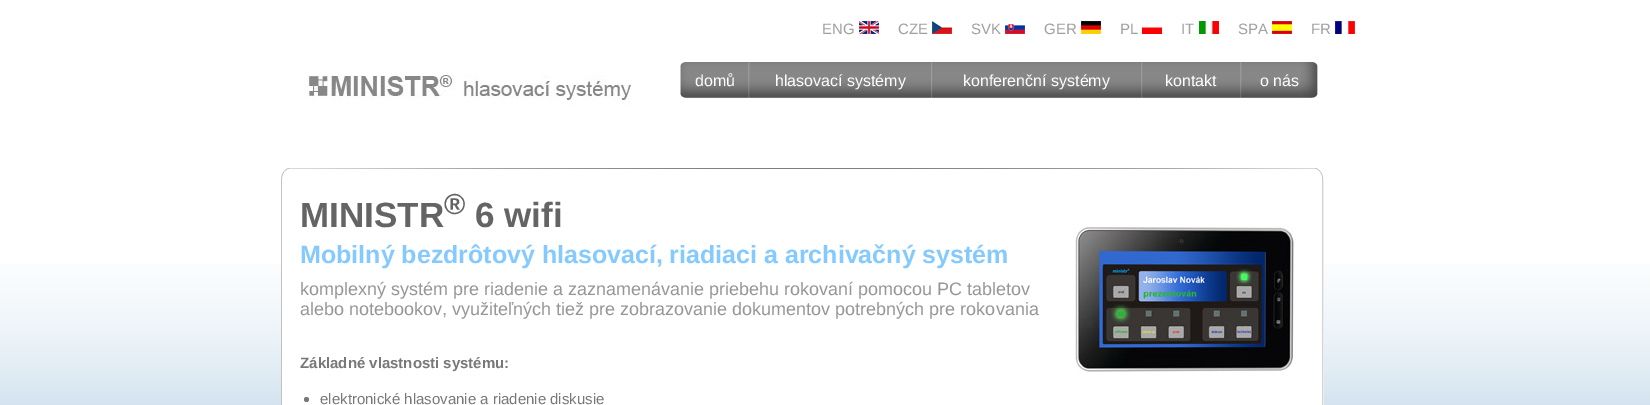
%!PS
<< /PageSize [1650 405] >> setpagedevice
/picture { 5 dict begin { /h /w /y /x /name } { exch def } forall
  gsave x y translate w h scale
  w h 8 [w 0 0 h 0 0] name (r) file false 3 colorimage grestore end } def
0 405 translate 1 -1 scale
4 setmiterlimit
1 setgray
0 0 1650 405 rectfill
(img1.rgb) 0 264 1650 141 picture
/LiberationSans-Regular [15 0 0 -15 0 0] selectfont
0.624 setgray
822 34 moveto (ENG) show
(img2.rgb) 859 21 20 13 picture
898 34 moveto (CZE) show
(img3.rgb) 932 21 20 13 picture
971 34 moveto (SVK) show
(img4.rgb) 1005 24 20 10 picture
1044 34 moveto (GER) show
(img5.rgb) 1081 21 20 13 picture
1120 34 moveto (PL) show
(img6.rgb) 1142 21 20 13 picture
1181 34 moveto (IT) show
(img7.rgb) 1199 21 20 13 picture
1238 34 moveto (SPA) show
(img8.rgb) 1272 21 20 13 picture
1311 34 moveto (FR) show
(img9.rgb) 1335 21 20 13 picture
(img10.rgb) 304 75 327 30 picture
(img11.rgb) 680 62 70 36 picture
/LiberationSans-Regular [16 0 0 -16 0 0] selectfont
1 setgray
695 86 moveto (domů) show
(img12.rgb) 750 62 181 36 picture
775 86 moveto (hlasovací systémy) show
(img13.rgb) 931 62 210 36 picture
963 86 moveto (konferenční systémy) show
(img14.rgb) 1141 62 100 36 picture
1165 86 moveto (kontakt) show
(img15.rgb) 1241 62 77 36 picture
1260 86 moveto (o nás) show
(img16.rgb) 281 168 1043 237 picture
/LiberationSans-Bold [35 0 0 -35 0 0] selectfont
0.392 setgray
300 227 moveto (MINISTR) show
/LiberationSans-Bold [29 0 0 -29 0 0] selectfont
444 214 moveto (®) show
/LiberationSans-Bold [35 0 0 -35 0 0] selectfont
475 227 moveto (6 wifi) show
/LiberationSans-Bold [25 0 0 -25 0 0] selectfont
0.522 0.792 1 setrgbcolor
300 263 moveto (Mobilný bezdrôtový hlasovací, riadiaci a archivačný systém) show
(img17.rgb) 1075 227 221 145 picture
/LiberationSans-Regular [18 0 0 -18 0 0] selectfont
0.588 setgray
300 295 moveto (komplexný systém pre riadenie a zaznamenávanie priebehu rokovaní pomocou PC tabletov) show
300 315 moveto (alebo notebookov, využiteľných tiež pre zobrazovanie dokumentov potrebných pre rokovania) show
/LiberationSans-Bold [15 0 0 -15 0 0] selectfont
0.471 setgray
300 368 moveto (Základné vlastnosti systému:) show
newpath 306.5 399.5 2.5 0 360 arc closepath fill
/LiberationSans-Regular [15 0 0 -15 0 0] selectfont
320 404 moveto (elektronické hlasovanie a riadenie diskusie) show
showpage
